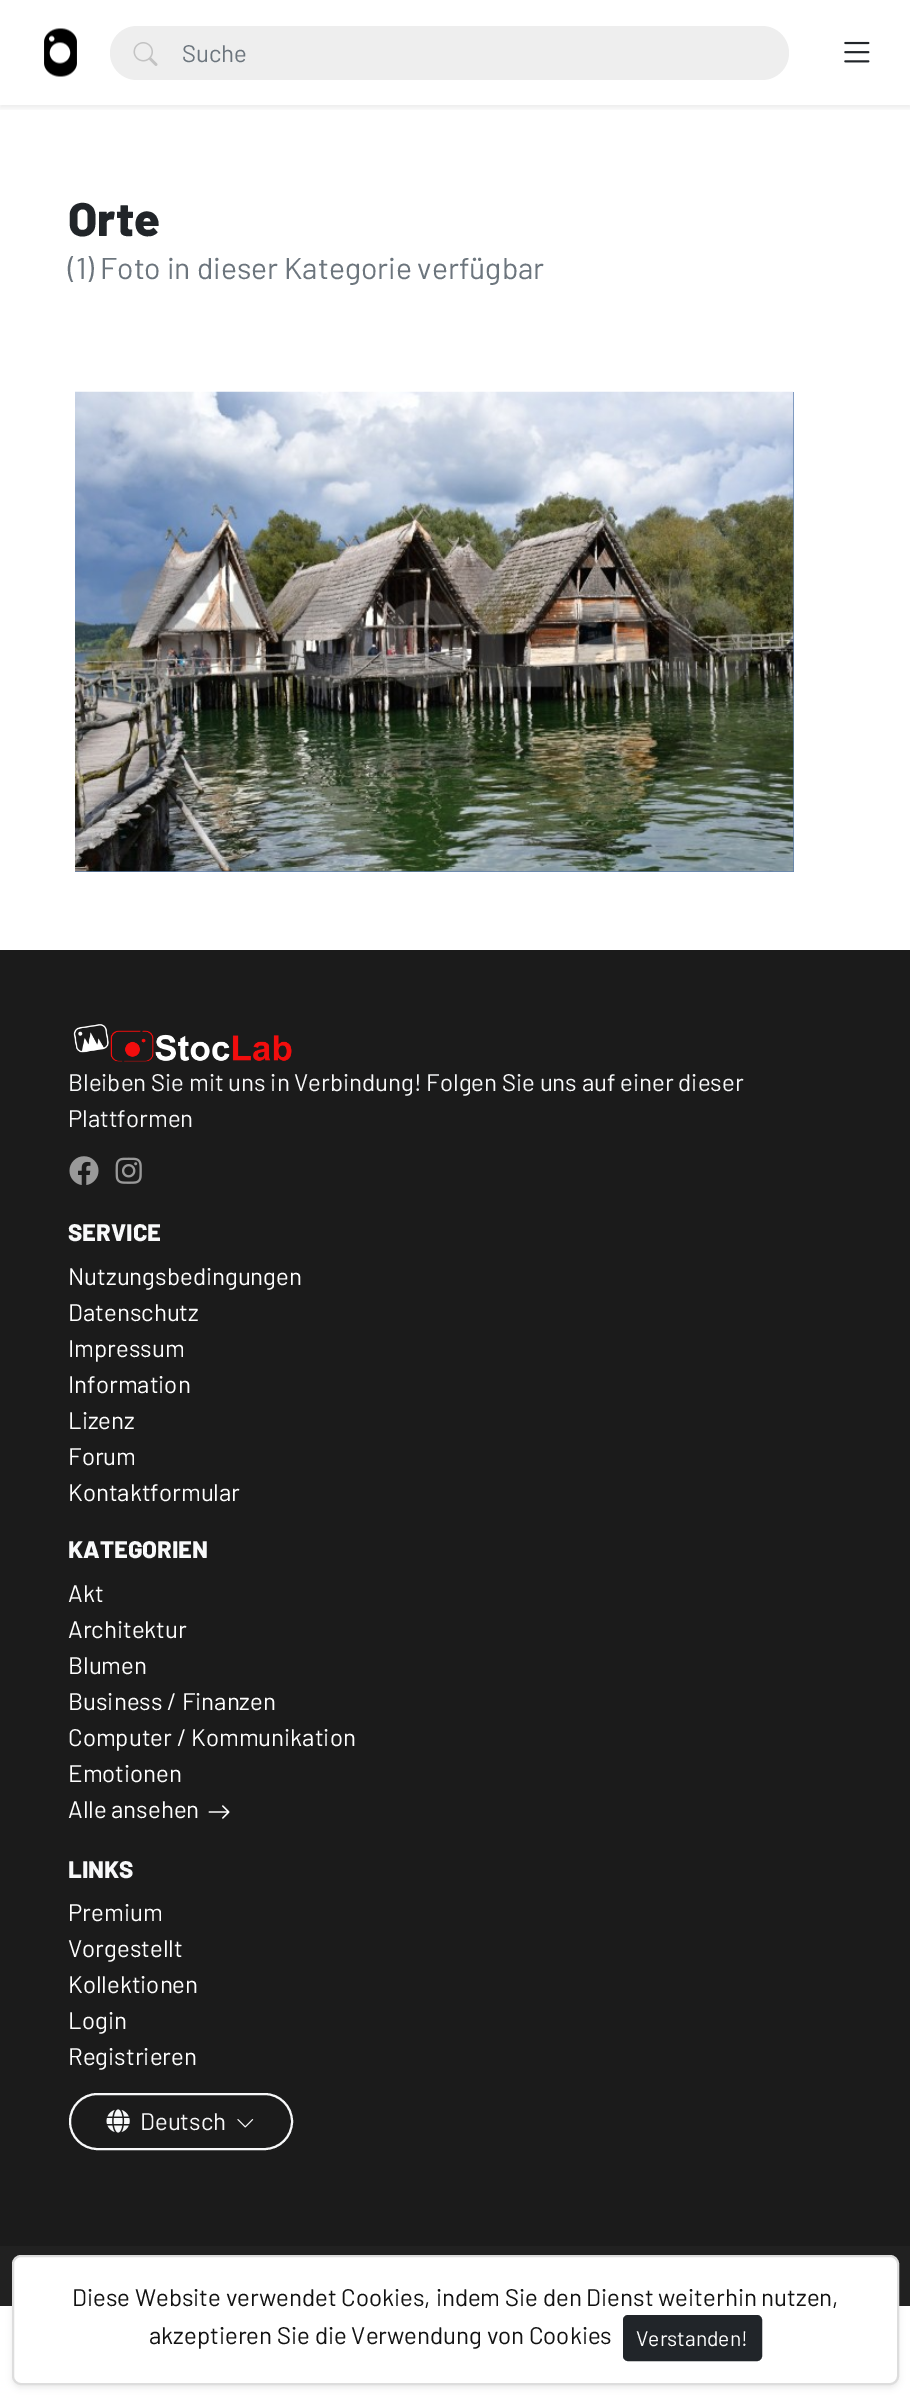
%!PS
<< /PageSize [910 2408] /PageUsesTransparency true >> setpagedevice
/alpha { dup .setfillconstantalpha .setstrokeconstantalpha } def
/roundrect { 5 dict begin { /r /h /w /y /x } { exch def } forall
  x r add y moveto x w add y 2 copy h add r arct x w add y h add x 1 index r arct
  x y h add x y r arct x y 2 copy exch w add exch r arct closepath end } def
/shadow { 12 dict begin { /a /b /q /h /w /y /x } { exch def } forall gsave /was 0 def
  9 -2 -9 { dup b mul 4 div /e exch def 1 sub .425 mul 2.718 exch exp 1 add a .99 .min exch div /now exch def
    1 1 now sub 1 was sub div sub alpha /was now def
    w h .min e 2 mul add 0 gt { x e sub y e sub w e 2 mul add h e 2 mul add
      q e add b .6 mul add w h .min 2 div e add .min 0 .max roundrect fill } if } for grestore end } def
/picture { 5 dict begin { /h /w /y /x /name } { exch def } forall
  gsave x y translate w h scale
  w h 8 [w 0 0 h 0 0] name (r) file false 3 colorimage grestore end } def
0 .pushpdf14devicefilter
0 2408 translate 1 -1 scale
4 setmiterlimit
1 setgray
0 0 910 2408 rectfill
gsave
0 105 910 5 rectclip
0 setgray
0 3 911 105 0 3 0.07 shadow
grestore
(img1.rgb) 44 28 33 49 picture
0.933 setgray
110 26 679 54 27 roundrect fill
(img2.rgb) 133 42 25 24 picture
/Barlow-Regular [24 0 0 -24 0 0] selectfont
0.424 0.459 0.49 setrgbcolor
182 62 moveto (Suche) show
(img3.rgb) 844 41 26 22 picture
/Barlow-ExtraBold [47 0 0 -47 0 0] selectfont
0.129 0.145 0.161 setrgbcolor
68 236 moveto (Orte) show
/Barlow-Regular [30 0 0 -30 0 0] selectfont
0.424 0.459 0.49 setrgbcolor
68 279 moveto (\(1\) Foto in dieser Kategorie verfügbar) show
0.38 0.514 0.694 setrgbcolor
75 392 719 480 rectfill
(img4.rgb) 75 391 719 481 picture
0.106 setgray
0 950 910 1296 rectfill
(img5.rgb) 73 1024 219 38 picture
/Barlow-Regular [24 0 0 -24 0 0] selectfont
0.973 0.976 0.98 setrgbcolor
68 1091 moveto (Bleiben Sie mit uns in Verbindung! Folgen Sie uns auf einer dieser) show
68 1127 moveto (Plattformen) show
(img6.rgb) 69 1156 30 29 picture
(img7.rgb) 115 1157 27 27 picture
/Barlow-ExtraBold [24 0 0 -24 0 0] selectfont
68 1241 moveto (SERVICE) show
/Barlow-Regular [24 0 0 -24 0 0] selectfont
1 setgray
68 1285 moveto (Nutzungsbedingungen) show
68 1321 moveto (Datenschutz) show
68 1357 moveto (Impressum) show
68 1393 moveto (Information) show
68 1429 moveto (Lizenz) show
68 1465 moveto (Forum) show
68 1501 moveto (Kontaktformular) show
/Barlow-ExtraBold [24 0 0 -24 0 0] selectfont
0.973 0.976 0.98 setrgbcolor
68 1558 moveto (KATEGORIEN) show
/Barlow-Regular [24 0 0 -24 0 0] selectfont
1 setgray
68 1602 moveto (Akt) show
68 1638 moveto (Architektur) show
68 1674 moveto (Blumen) show
68 1710 moveto (Business / Finanzen) show
68 1746 moveto (Computer / Kommunikation) show
68 1782 moveto (Emotionen) show
68 1818 moveto (Alle ansehen) show
(img8.rgb) 208 1805 22 14 picture
/Barlow-ExtraBold [24 0 0 -24 0 0] selectfont
0.973 0.976 0.98 setrgbcolor
68 1878 moveto (LINKS) show
/Barlow-Regular [24 0 0 -24 0 0] selectfont
1 setgray
68 1921 moveto (Premium) show
68 1957 moveto (Vorgestellt) show
68 1993 moveto (Kollektionen) show
68 2029 moveto (Login) show
68 2065 moveto (Registrieren) show
0.973 0.976 0.98 setrgbcolor
2 setlinewidth
70 2094 222 55 27.5 roundrect stroke
(img9.rgb) 106 2109 24 24 picture
140 2130 moveto (Deutsch) show
(img10.rgb) 237 2119 17 9 picture
0.129 setgray
0 2246 910 60 rectfill
0 setgray
12 2258 887 130 9 3 0.07 shadow
1 setgray
13 2256 885 128 8 roundrect gsave fill grestore
0.867 setgray
stroke
0.071 setgray
72 2306 moveto (Diese Website verwendet Cookies, indem Sie den Dienst weiterhin nutzen,) show
149 2344 moveto (akzeptieren Sie die Verwendung von Cookies) show
0.129 0.145 0.161 setrgbcolor
624 2316 137 44 4 roundrect gsave fill grestore
stroke
/Barlow-Regular [21 0 0 -21 0 0] selectfont
1 setgray
636 2346 moveto (Verstanden!) show
.poppdf14devicefilter showpage
